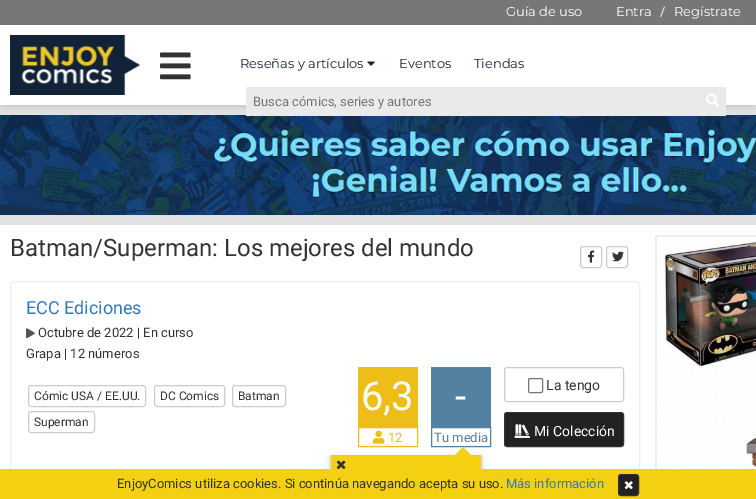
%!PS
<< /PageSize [756 499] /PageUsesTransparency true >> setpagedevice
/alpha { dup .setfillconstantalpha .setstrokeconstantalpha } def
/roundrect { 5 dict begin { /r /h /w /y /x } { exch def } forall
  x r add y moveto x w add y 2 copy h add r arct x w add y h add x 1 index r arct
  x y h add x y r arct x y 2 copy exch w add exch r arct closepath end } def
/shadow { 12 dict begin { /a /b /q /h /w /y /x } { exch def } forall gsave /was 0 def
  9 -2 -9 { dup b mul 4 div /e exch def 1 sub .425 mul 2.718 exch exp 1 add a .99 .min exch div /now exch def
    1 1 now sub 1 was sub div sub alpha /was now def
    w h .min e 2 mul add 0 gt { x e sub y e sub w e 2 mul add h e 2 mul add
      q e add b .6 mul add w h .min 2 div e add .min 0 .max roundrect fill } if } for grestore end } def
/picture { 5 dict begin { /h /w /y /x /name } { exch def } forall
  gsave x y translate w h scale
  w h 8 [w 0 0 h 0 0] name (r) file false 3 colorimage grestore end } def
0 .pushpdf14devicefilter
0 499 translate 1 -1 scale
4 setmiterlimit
0.886 0.882 0.882 setrgbcolor
0 0 756 499 rectfill
(img5.rgb) 0 115 756 100 picture
0 setgray
4 7 748 97 0 4 0.3 shadow
1 setgray
0 25 756 80 rectfill
0.467 setgray
0 0 756 25 rectfill
/Montserrat-Regular [13 0 0 -13 0 0] selectfont
1 setgray
506 16 moveto (Guía de uso) show
616 16 moveto (Entra) show
/Roboto-Regular [13 0 0 -13 0 0] selectfont
660 16 moveto (/) show
/Montserrat-Regular [13 0 0 -13 0 0] selectfont
674 16 moveto (Regístrate) show
(img1.rgb) 10 35 130 60 picture
(img2.rgb) 160 52 31 28 picture
0.071 0.137 0.22 setrgbcolor
240 68 moveto (Reseñas y artículos) show
(img3.rgb) 367 61 8 5 picture
399 68 moveto (Eventos) show
474 68 moveto (Tiendas) show
0.918 setgray
246 87 480 29 rectfill
/Roboto-Regular [13 0 0 -13 0 0] selectfont
0.459 setgray
253 106 moveto (Busca cómics, series y autores) show
(img4.rgb) 706 93 13 14 picture
1 setgray
0 225 756 244 rectfill
/Roboto-Regular [24 0 0 -24 0 0] selectfont
0.2 setgray
10 256 moveto (Batman/Superman: Los mejores del mundo) show
0.933 setgray
10.5 281.5 629 201 3.5 roundrect stroke
/Roboto-Regular [18 0 0 -18 0 0] selectfont
0.2 0.478 0.718 setrgbcolor
26 314 moveto (ECC Ediciones) show
(img6.rgb) 26 328 9 11 picture
/Roboto-Regular [13 0 0 -13 0 0] selectfont
0.2 setgray
38 337 moveto (Octubre de 2022 | En curso) show
26 358 moveto (Grapa | 12 números) show
0.8 setgray
28.5 385.5 117 21 2.5 roundrect stroke
/Roboto-Regular [12 0 0 -12 0 0] selectfont
0.2 setgray
34 400 moveto (Cómic USA / EE.UU.) show
0.8 setgray
154.5 385.5 70 21 2.5 roundrect stroke
0.2 setgray
160 400 moveto (DC Comics) show
0.8 setgray
232.5 385.5 53 21 2.5 roundrect stroke
0.2 setgray
238 400 moveto (Batman) show
0.8 setgray
28.5 411.5 66 21 2.5 roundrect stroke
0.2 setgray
34 426 moveto (Superman) show
0.929 0.741 0.094 setrgbcolor
358 367 60 60 rectfill
/Roboto-Regular [40 0 0 -40 0 0] selectfont
1 setgray
361 410 moveto (6,3) show
0.929 0.741 0.094 setrgbcolor
358.5 427.5 59 19 rectstroke
(img7.rgb) 373 430 12 14 picture
/Roboto-Regular [13 0 0 -13 0 0] selectfont
388 442 moveto (12) show
0.325 0.506 0.631 setrgbcolor
431 367 60 60 rectfill
/Roboto-Regular [40 0 0 -40 0 0] selectfont
1 setgray
455 410 moveto (-) show
0.325 0.506 0.631 setrgbcolor
431.5 427.5 59 19 rectstroke
/Roboto-Regular [13 0 0 -13 0 0] selectfont
434 442 moveto (Tu media) show
0.8 setgray
504.5 367.5 119 34 2.5 roundrect stroke
0.463 setgray
528.5 378.5 14 14 1.5 roundrect stroke
/Roboto-Regular [14 0 0 -14 0 0] selectfont
0.2 setgray
546 390 moveto (La tengo) show
0.133 setgray
504.5 412.5 119 34 2.5 roundrect gsave fill grestore
0.2 setgray
stroke
(img8.rgb) 514 424 16 14 picture
1 setgray
534 436 moveto (Mi Colección) show
0.667 setgray
331 457 150 42 0 2.5 1 shadow
0.953 0.816 0.071 setrgbcolor
331 455 150 14 rectfill
newpath 473 457 moveto 453 457 lineto 463 447 lineto closepath fill
(img9.rgb) 336 460 10 9 picture
0.8 setgray
580.5 246.5 21 21 2.5 roundrect stroke
(img10.rgb) 588 250 7 13 picture
606.5 246.5 21 21 2.5 roundrect stroke
(img11.rgb) 612 251 12 11 picture
0.933 setgray
655 235 101 234 rectfill
(img12.rgb) 657 237 99 232 picture
0.953 0.816 0.071 setrgbcolor
0 469 756 30 rectfill
/Roboto-Regular [13 0 0 -13 0 0] selectfont
0.2 setgray
117 488 moveto (EnjoyComics utiliza cookies. Si continúa navegando acepta su uso.) show
0.2 0.478 0.718 setrgbcolor
506 488 moveto (Más información) show
0.133 setgray
618.5 474.5 20 21 2.5 roundrect gsave fill grestore
0.2 setgray
stroke
(img13.rgb) 624 481 9 9 picture
.poppdf14devicefilter showpage
